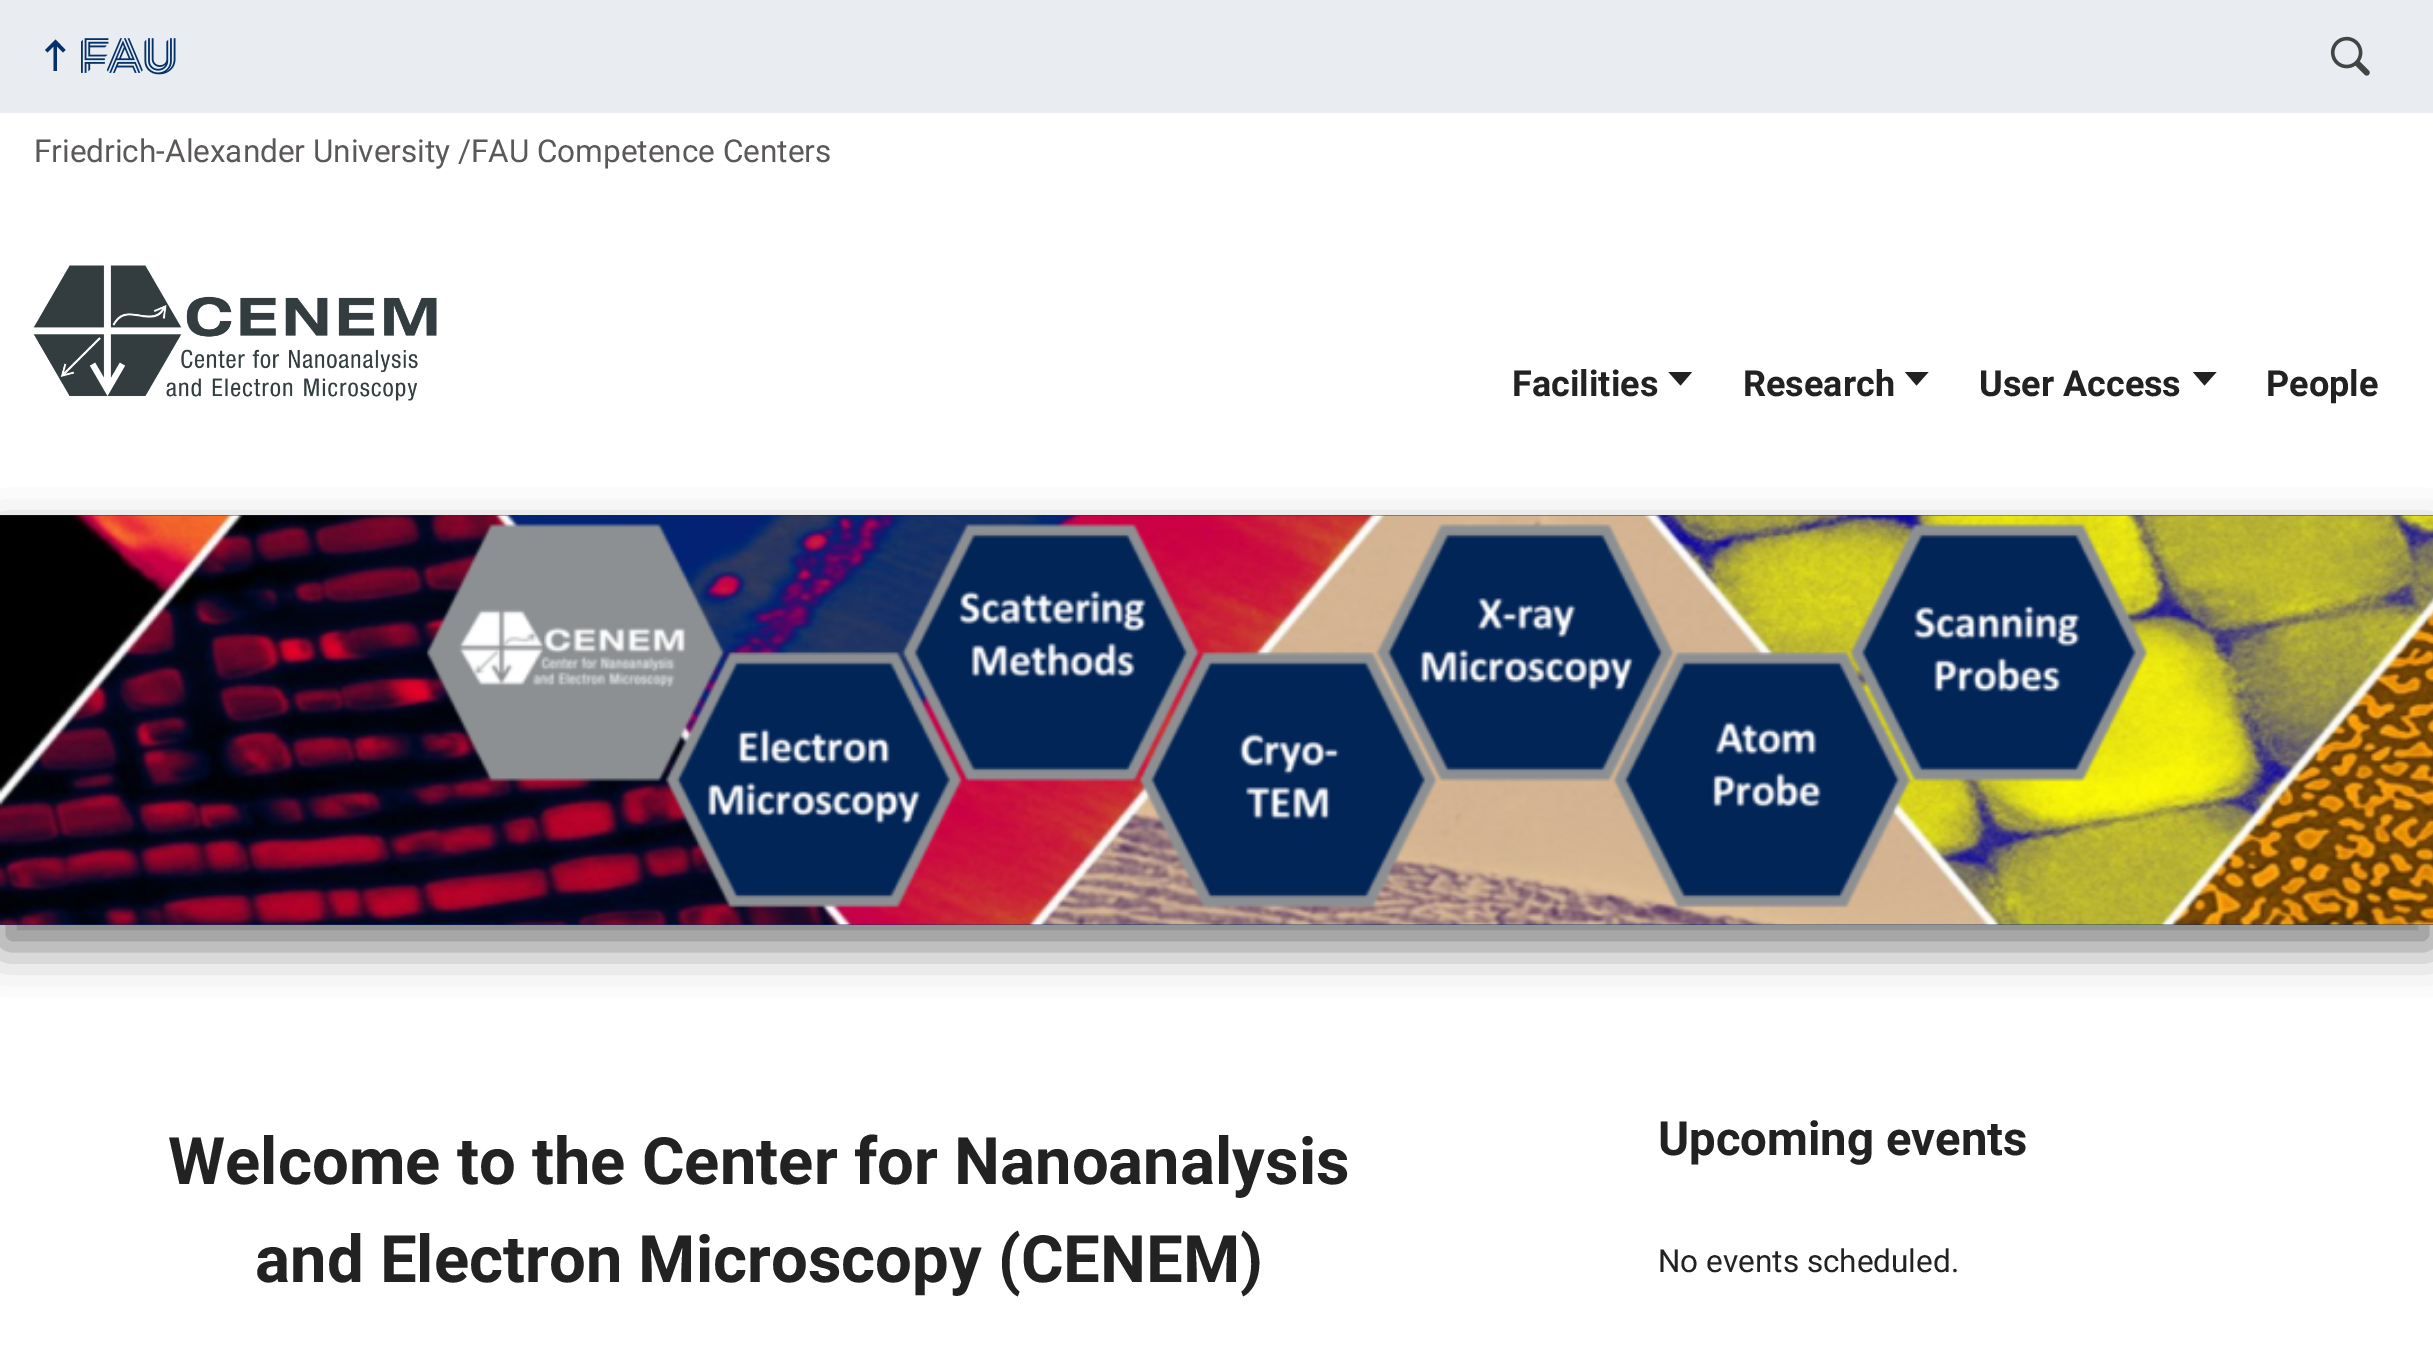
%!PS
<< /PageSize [2433 1362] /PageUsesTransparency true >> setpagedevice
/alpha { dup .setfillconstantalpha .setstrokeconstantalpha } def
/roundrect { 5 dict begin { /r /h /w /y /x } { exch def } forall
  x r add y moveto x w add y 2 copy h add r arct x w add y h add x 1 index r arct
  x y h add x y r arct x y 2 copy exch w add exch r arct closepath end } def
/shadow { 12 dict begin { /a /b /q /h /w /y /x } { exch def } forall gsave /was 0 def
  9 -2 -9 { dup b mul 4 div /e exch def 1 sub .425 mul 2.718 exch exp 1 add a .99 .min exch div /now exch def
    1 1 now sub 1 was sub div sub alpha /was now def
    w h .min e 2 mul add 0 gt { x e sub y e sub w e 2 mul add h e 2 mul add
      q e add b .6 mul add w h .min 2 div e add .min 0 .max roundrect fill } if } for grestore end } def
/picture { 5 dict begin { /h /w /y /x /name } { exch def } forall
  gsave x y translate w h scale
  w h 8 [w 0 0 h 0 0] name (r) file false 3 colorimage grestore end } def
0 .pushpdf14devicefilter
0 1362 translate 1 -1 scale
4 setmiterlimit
1 setgray
0 0 2433 1362 rectfill
0.914 0.929 0.949 setrgbcolor
0 0 2433 113 rectfill
0.016 0.192 0.416 setrgbcolor
newpath 65.5 50 moveto 63 52.5 lineto 57 46.5 lineto 57 71 lineto 53.5 71 lineto 53.5 46.5 lineto 47.5 52.5 lineto 45 50 lineto 55.5 39.5 lineto closepath fill
(img1.rgb) 81 38 95 37 picture
(img2.rgb) 2330 36 40 40 picture
/Roboto-Regular [31.5 0 0 -31.5 0 0] selectfont
0.357 0.345 0.345 setrgbcolor
34 162 moveto (Friedrich-Alexander University /FAU Competence Centers) show
(img3.rgb) 33 265 404 136 picture
/Roboto-Bold [36 0 0 -36 0 0] selectfont
0.133 setgray
1512 396 moveto (Facilities) show
newpath 1668.5 372 moveto 1680.5 385.5 lineto 1692 372 lineto closepath fill
1743 396 moveto (Research) show
newpath 1905 372 moveto 1916.5 385.5 lineto 1928.5 372 lineto closepath fill
1979 396 moveto (User Access) show
newpath 2193 372 moveto 2204.5 385.5 lineto 2216.5 372 lineto closepath fill
2266 396 moveto (People) show
0 setgray
0 538 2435 409 0 22.5 0.5 shadow
0.016 0.192 0.416 setrgbcolor
0 515 2433 410 rectfill
(img4.rgb) 0 515 2433 410 picture
/Roboto-Bold [65.25 0 0 -65.25 0 0] selectfont
0.133 setgray
168 1184 moveto (Welcome to the Center for Nanoanalysis) show
255 1282 moveto (and Electron Microscopy \(CENEM\)) show
/Roboto-Bold [47.25 0 0 -47.25 0 0] selectfont
1658 1155 moveto (Upcoming events) show
/Roboto-Regular [31.5 0 0 -31.5 0 0] selectfont
1658 1272 moveto (No events scheduled.) show
.poppdf14devicefilter showpage
